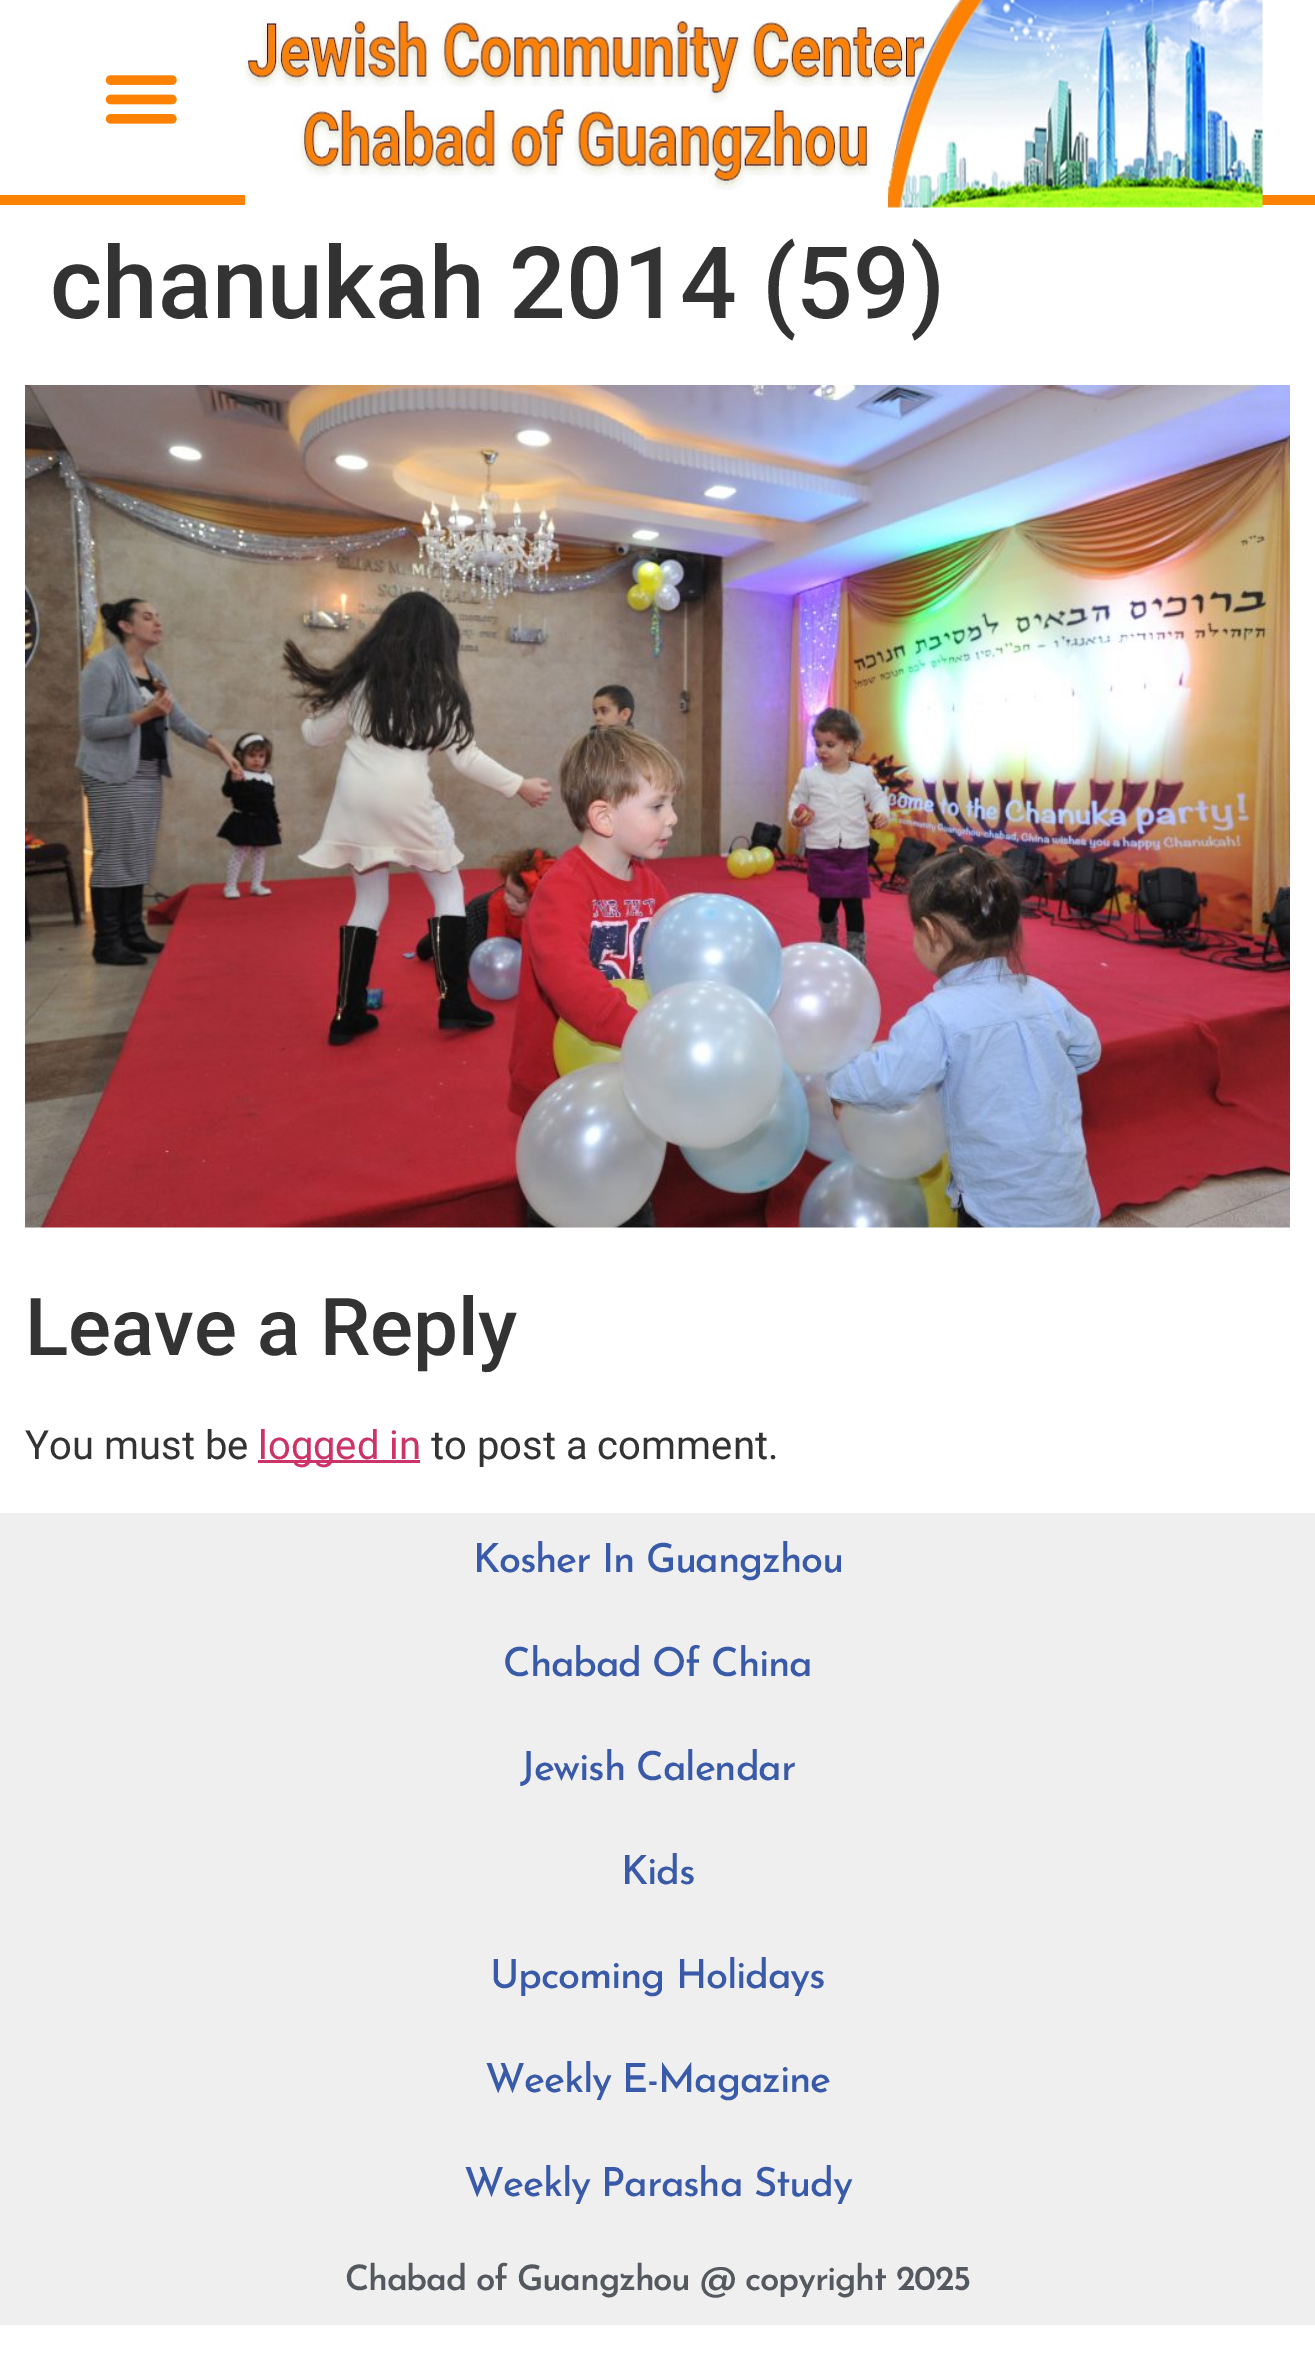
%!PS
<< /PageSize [1315 2370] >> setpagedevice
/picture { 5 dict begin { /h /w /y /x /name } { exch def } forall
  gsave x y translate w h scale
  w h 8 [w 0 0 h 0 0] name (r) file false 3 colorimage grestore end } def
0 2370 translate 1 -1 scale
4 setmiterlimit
1 setgray
0 0 1315 2370 rectfill
0.992 0.51 0.016 setrgbcolor
0 195 1315 10 rectfill
(img1.rgb) 105 75 72 49 picture
(img2.rgb) 245 0 1018 208 picture
/Roboto-Medium [100 0 0 -100 0 0] selectfont
0.2 setgray
50 318 moveto (chanukah 2014 \(59\)) show
(img3.rgb) 25 385 1265 843 picture
/Roboto-Medium [80 0 0 -80 0 0] selectfont
25 1355 moveto (Leave a Reply) show
/Roboto-Regular [40 0 0 -40 0 0] selectfont
25 1459 moveto (You must be) show
0.8 0.2 0.4 setrgbcolor
258 1460 162 3 rectfill
258 1459 moveto (logged in) show
0.2 setgray
431 1459 moveto (to post a comment.) show
0.937 setgray
0 1513 1315 812 rectfill
/JosefinSans-Medium [40 0 0 -40 0 0] selectfont
0.224 0.353 0.659 setrgbcolor
473 1572 moveto -1.25 0 (Kosher In Guangzhou) ashow
503 1676 moveto -1.25 0 (Chabad Of China) ashow
520 1780 moveto -1.25 0 (Jewish Calendar) ashow
621 1884 moveto -1.25 0 (Kids) ashow
490 1988 moveto -1.25 0 (Upcoming Holidays) ashow
485 2092 moveto -1.25 0 (Weekly E-Magazine) ashow
464 2196 moveto -1.25 0 (Weekly Parasha Study) ashow
/JosefinSans-SemiBold [35 0 0 -35 0 0] selectfont
0.329 0.349 0.373 setrgbcolor
345 2290 moveto -1.25 0 (Chabad of Guangzhou @ copyright 2025) ashow
showpage
